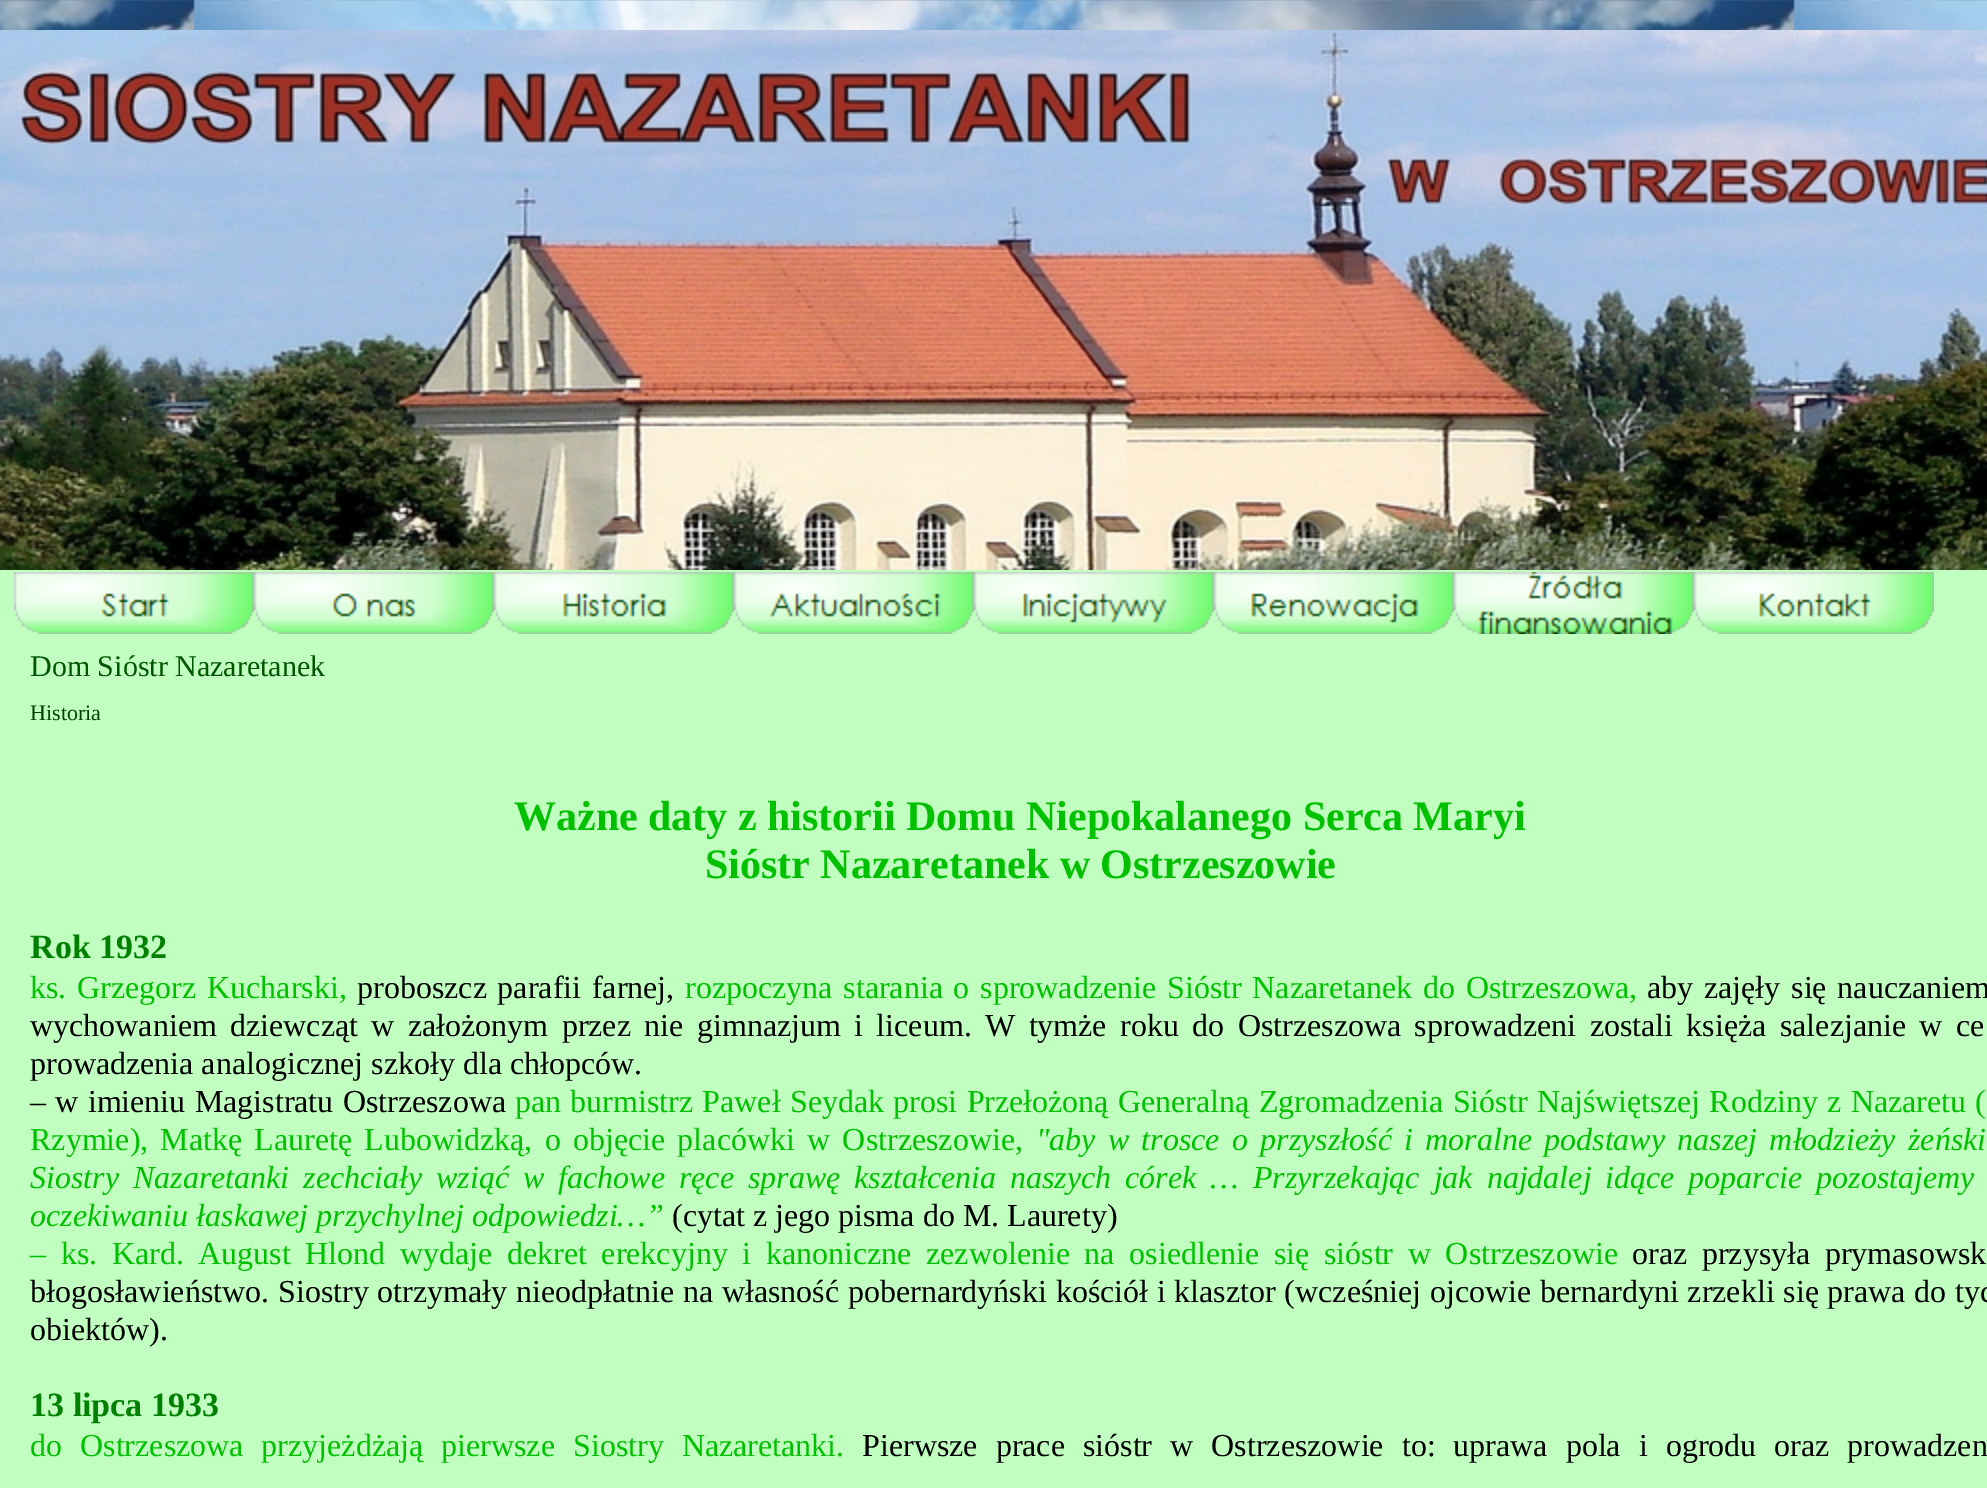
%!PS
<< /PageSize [1987 1488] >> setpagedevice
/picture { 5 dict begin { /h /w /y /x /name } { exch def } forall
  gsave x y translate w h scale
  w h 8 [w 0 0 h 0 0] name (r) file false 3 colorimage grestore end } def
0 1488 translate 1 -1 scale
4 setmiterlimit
1 setgray
0 0 1987 1488 rectfill
(img1.rgb) 0 0 1987 30 picture
(img2.rgb) 0 30 1987 540 picture
0.753 1 0.753 setrgbcolor
0 570 1987 918 rectfill
(img3.rgb) 14 572 240 62 picture
(img4.rgb) 254 572 240 62 picture
(img5.rgb) 494 572 240 62 picture
(img6.rgb) 734 572 240 62 picture
(img7.rgb) 974 572 240 62 picture
(img8.rgb) 1214 572 240 62 picture
(img9.rgb) 1454 572 240 62 picture
(img10.rgb) 1694 572 240 62 picture
/LiberationSerif-Regular [30 0 0 -30 0 0] selectfont
0 0.333 0 setrgbcolor
30 676 moveto (Dom Sióstr Nazaretanek) show
/LiberationSerif-Regular [22 0 0 -22 0 0] selectfont
0 0.251 0 setrgbcolor
30 720 moveto (Historia) show
/LiberationSerif-Bold [42 0 0 -42 0 0] selectfont
0 0.753 0 setrgbcolor
514 830 moveto (Ważne daty z historii Domu Niepokalanego Serca Maryi) show
705 878 moveto (Sióstr Nazaretanek w Ostrzeszowie) show
/LiberationSerif-Bold [34 0 0 -34 0 0] selectfont
0 0.502 0 setrgbcolor
30 958 moveto (Rok 1932) show
/LiberationSerif-Regular [32 0 0 -32 0 0] selectfont
0 0.753 0 setrgbcolor
30 998 moveto 2.75 0 32 (ks. Grzegorz Kucharski,) widthshow
0 setgray
357 998 moveto 2.75 0 32 (proboszcz parafii farnej,) widthshow
0 0.753 0 setrgbcolor
685 998 moveto 2.75 0 32 (rozpoczyna starania o sprowadzenie Sióstr Nazaretanek do Ostrzeszowa,) widthshow
0 setgray
1647 998 moveto 2.75 0 32 (aby zajęły się nauczaniem) widthshow
30 1036 moveto 5.4 0 32 (wychowaniem dziewcząt w założonym przez nie gimnazjum i liceum. W tymże roku do Ostrzeszowa sprowadzeni zostali księża salezjanie w ce) widthshow
30 1074 moveto (prowadzenia analogicznej szkoły dla chłopców.) show
30 1112 moveto 1.25 0 32 (– w imieniu Magistratu Ostrzeszowa) widthshow
0 0.753 0 setrgbcolor
515 1112 moveto 1.25 0 32 (pan burmistrz Paweł Seydak prosi Przełożoną Generalną Zgromadzenia Sióstr Najświętszej Rodziny z Nazaretu \() widthshow
30 1150 moveto 4.25 0 32 (Rzymie\), Matkę Lauretę Lubowidzką, o objęcie placówki w Ostrzeszowie,) widthshow
/LiberationSerif-Italic [32 0 0 -32 0 0] selectfont
1036 1150 moveto 4.25 0 32 ("aby w trosce o przyszłość i moralne podstawy naszej młodzieży żeński) widthshow
30 1188 moveto 5.9 0 32 (Siostry Nazaretanki zechciały wziąć w fachowe ręce sprawę kształcenia naszych córek … Przyrzekając jak najdalej idące poparcie pozostajemy) widthshow
30 1226 moveto (oczekiwaniu łaskawej przychylnej odpowiedzi…”) show
/LiberationSerif-Regular [32 0 0 -32 0 0] selectfont
0 setgray
672 1226 moveto (\(cytat z jego pisma do M. Laurety\)) show
0 0.753 0 setrgbcolor
30 1264 moveto 6.6 0 32 (– ks. Kard. August Hlond wydaje dekret erekcyjny i kanoniczne zezwolenie na osiedlenie się sióstr w Ostrzeszowie) widthshow
0 setgray
1632 1264 moveto 6.6 0 32 (oraz przysyła prymasowsk) widthshow
30 1302 moveto 0.75 0 32 (błogosławieństwo. Siostry otrzymały nieodpłatnie na własność pobernardyński kościół i klasztor \(wcześniej ojcowie bernardyni zrzekli się prawa do tyc) widthshow
30 1340 moveto (obiektów\).) show
/LiberationSerif-Bold [34 0 0 -34 0 0] selectfont
0 0.502 0 setrgbcolor
30 1416 moveto (13 lipca 1933) show
/LiberationSerif-Regular [32 0 0 -32 0 0] selectfont
0 0.753 0 setrgbcolor
30 1456 moveto 10 0 32 (do Ostrzeszowa przyjeżdżają pierwsze Siostry Nazaretanki.) widthshow
0 setgray
862 1456 moveto 10 0 32 (Pierwsze prace sióstr w Ostrzeszowie to: uprawa pola i ogrodu oraz prowadzen) widthshow
showpage
